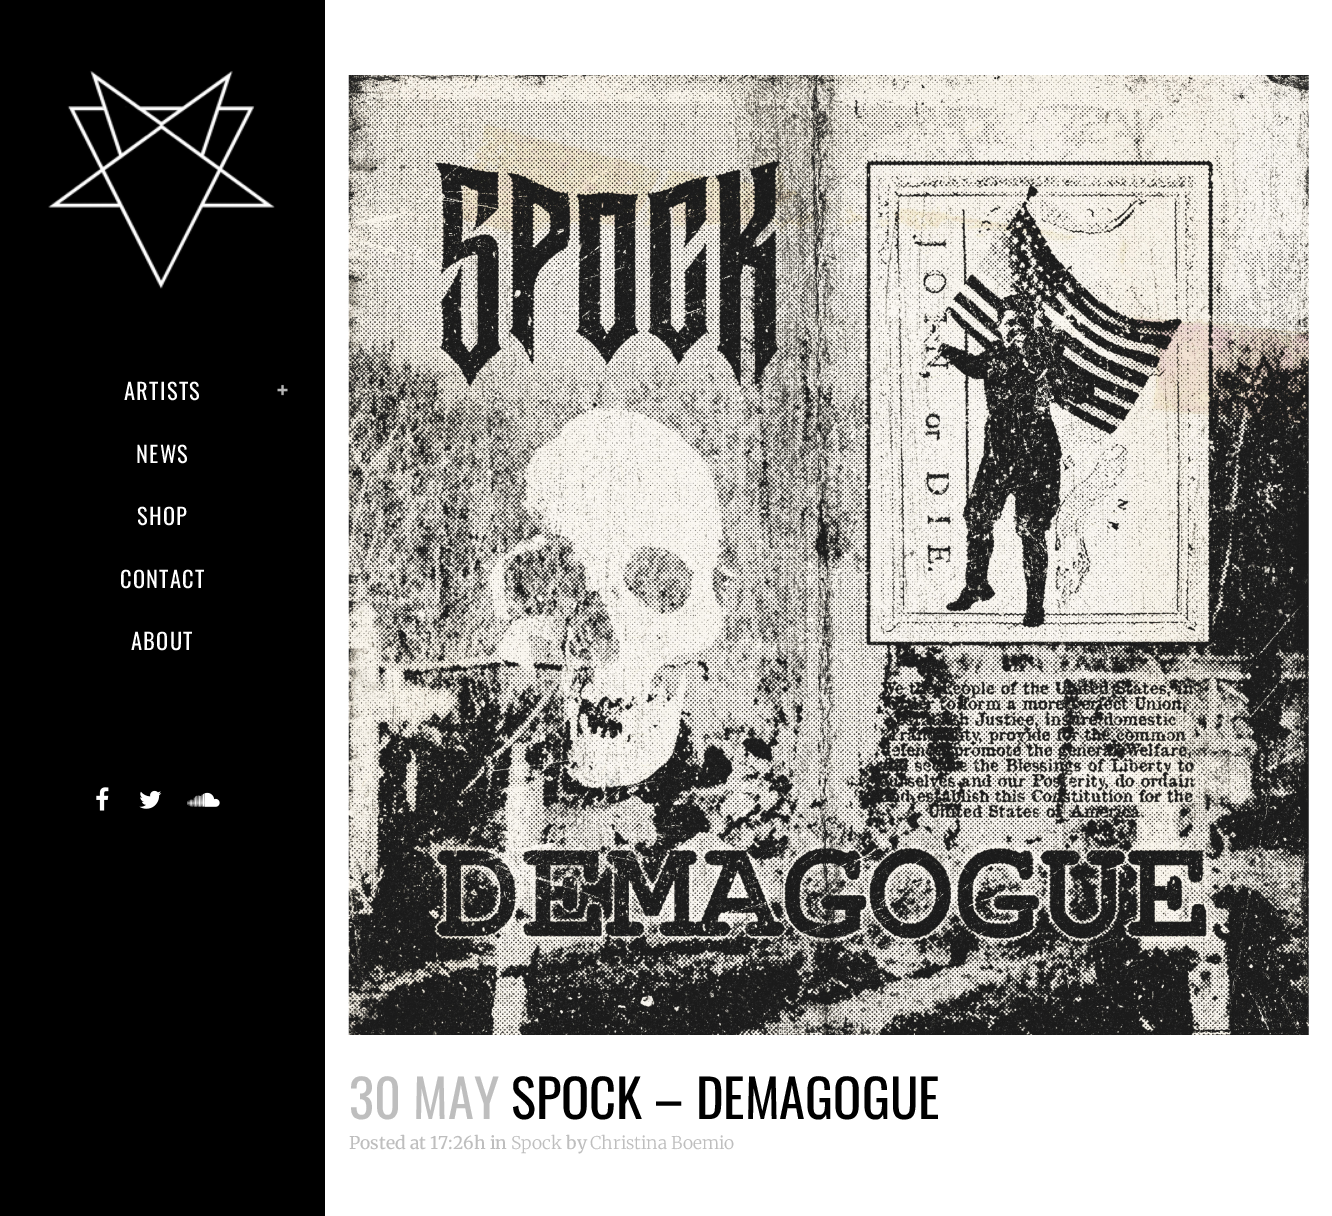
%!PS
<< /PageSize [1332 1216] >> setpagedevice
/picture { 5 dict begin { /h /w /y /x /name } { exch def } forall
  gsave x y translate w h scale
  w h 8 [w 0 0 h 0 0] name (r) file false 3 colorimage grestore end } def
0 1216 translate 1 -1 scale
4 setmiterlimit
1 setgray
0 0 1332 1216 rectfill
0 setgray
0 0 325 1216 rectfill
(img1.rgb) 48 70 227 219 picture
/Oswald-Regular [22.5 0 0 -22.5 0 0] selectfont
1 setgray
124 400 moveto 1.25 0 (ARTISTS) ashow
(img2.rgb) 277 384 11 12 picture
136 463 moveto 1.25 0 (NEWS) ashow
137 525 moveto 1.25 0 (SHOP) ashow
120 588 moveto 1.25 0 (CONTACT) ashow
131 650 moveto 1.25 0 (ABOUT) ashow
(img3.rgb) 96 787 13 24 picture
(img4.rgb) 139 790 23 19 picture
(img5.rgb) 187 792 33 15 picture
(img6.rgb) 348 75 961 960 picture
/Oswald-Regular [52.5 0 0 -52.5 0 0] selectfont
0.745 setgray
349 1119 moveto (30 MAY) show
0 setgray
511 1119 moveto (SPOCK – DEMAGOGUE) show
/Merriweather-Medium [17.5 0 0 -17.5 0 0] selectfont
0.745 setgray
349 1149 moveto (Posted at 17:26h in) show
/Merriweather-Light [17.5 0 0 -17.5 0 0] selectfont
511 1149 moveto (Spock) show
/Merriweather-Medium [17.5 0 0 -17.5 0 0] selectfont
566 1149 moveto (by) show
/Merriweather-Light [17.5 0 0 -17.5 0 0] selectfont
590 1149 moveto (Christina Boemio) show
showpage
